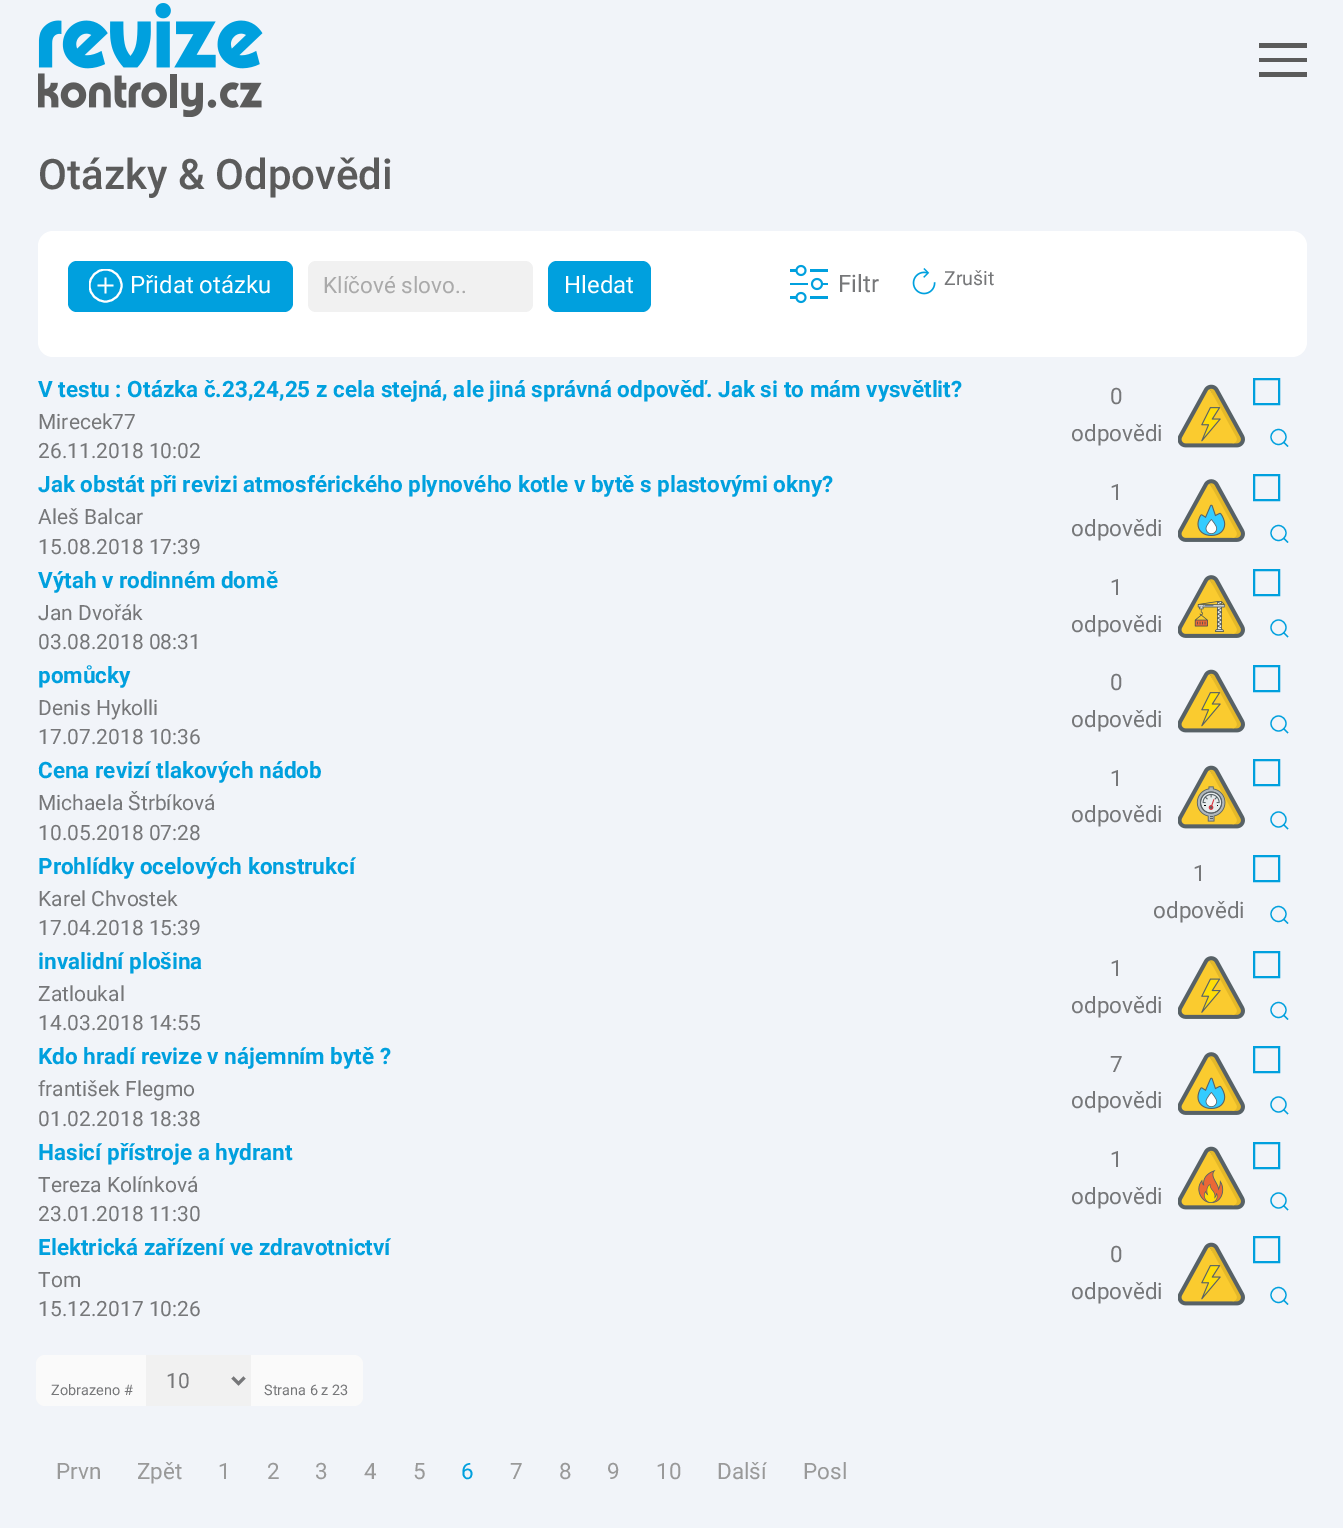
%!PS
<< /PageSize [1343 1528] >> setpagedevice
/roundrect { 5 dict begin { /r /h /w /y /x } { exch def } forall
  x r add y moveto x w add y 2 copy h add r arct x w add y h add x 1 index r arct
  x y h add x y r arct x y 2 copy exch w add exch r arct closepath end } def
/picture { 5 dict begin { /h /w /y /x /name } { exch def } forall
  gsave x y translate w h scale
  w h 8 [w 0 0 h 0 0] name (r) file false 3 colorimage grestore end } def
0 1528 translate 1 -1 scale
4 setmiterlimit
0.945 0.957 0.976 setrgbcolor
0 0 1343 1528 rectfill
(img1.rgb) 38 3 225 114 picture
0.357 setgray
1259 43 48 5 rectfill
1259 58 48 4 rectfill
1259 72 48 5 rectfill
/Roboto-Medium [42 0 0 -42 0 0] selectfont
38 189 moveto (Otázky & Odpovědi) show
1 setgray
38 231 1269 126 15 roundrect fill
0 0.627 0.871 setrgbcolor
68 261 225 51 9 roundrect fill
gsave
89 269 36 36 rectclip
1 setgray
2 setlinewidth
newpath 105.5 285.5 16 0 360 arc closepath stroke
grestore
1 setgray
1.8 setlinewidth
newpath 105.5 277.5 moveto 105.5 293.5 lineto 97.5 285.5 moveto 113.5 285.5 lineto stroke
/Roboto-Regular [24 0 0 -24 0 0] selectfont
130 293 moveto (Přidat otázku) show
0.945 setgray
308 261 225 51 8 roundrect fill
/Roboto-Regular [22.5 0 0 -22.5 0 0] selectfont
0.667 setgray
323 293 moveto (Klíčové slovo..) show
0 0.627 0.871 setrgbcolor
548 261 103 51 9 roundrect fill
/Roboto-Regular [24 0 0 -24 0 0] selectfont
1 setgray
564 293 moveto (Hledat) show
(img2.rgb) 790 264 38 40 picture
0.463 0.467 0.475 setrgbcolor
838 292 moveto (Filtr) show
(img3.rgb) 912 268 24 27 picture
/Roboto-Regular [19.5 0 0 -19.5 0 0] selectfont
944 285 moveto (Zrušit) show
/Roboto-Bold [22.5 0 0 -22.5 0 0] selectfont
0 0.627 0.871 setrgbcolor
38 397 moveto (V testu : Otázka č.23,24,25 z cela stejná, ale jiná správná odpověď. Jak si to mám vysvětlit?) show
/Roboto-Regular [22.5 0 0 -22.5 0 0] selectfont
0.463 0.467 0.475 setrgbcolor
1110 404 moveto (0) show
1071 441 moveto (odpovědi) show
(img4.rgb) 1178 384 67 64 picture
/Roboto-Regular [21 0 0 -21 0 0] selectfont
38 429 moveto (Mirecek77) show
38 458 moveto (26.11.2018 10:02) show
0 0.627 0.871 setrgbcolor
2 setlinewidth
1254 379 25 25 rectstroke
1.2 setlinewidth
newpath 1278.5 437 7.5 0 360 arc closepath stroke
newpath 1283.5 442 moveto 1288 446.5 lineto closepath stroke
/Roboto-Bold [22.5 0 0 -22.5 0 0] selectfont
38 492 moveto (Jak obstát při revizi atmosférického plynového kotle v bytě s plastovými okny?) show
/Roboto-Regular [22.5 0 0 -22.5 0 0] selectfont
0.463 0.467 0.475 setrgbcolor
1110 500 moveto (1) show
1071 536 moveto (odpovědi) show
(img5.rgb) 1178 479 67 63 picture
/Roboto-Regular [21 0 0 -21 0 0] selectfont
38 524 moveto (Aleš Balcar) show
38 554 moveto (15.08.2018 17:39) show
0 0.627 0.871 setrgbcolor
2 setlinewidth
1254 475 25 25 rectstroke
1.2 setlinewidth
newpath 1278.5 533 7.5 0 360 arc closepath stroke
newpath 1283.5 538 moveto 1288 542.5 lineto closepath stroke
/Roboto-Bold [22.5 0 0 -22.5 0 0] selectfont
38 588 moveto (Výtah v rodinném domě) show
/Roboto-Regular [22.5 0 0 -22.5 0 0] selectfont
0.463 0.467 0.475 setrgbcolor
1110 595 moveto (1) show
1071 632 moveto (odpovědi) show
(img6.rgb) 1178 575 67 63 picture
/Roboto-Regular [21 0 0 -21 0 0] selectfont
38 620 moveto (Jan Dvořák) show
38 649 moveto (03.08.2018 08:31) show
0 0.627 0.871 setrgbcolor
2 setlinewidth
1254 570 25 25 rectstroke
1.2 setlinewidth
newpath 1278.5 627.5 7.5 0 360 arc closepath stroke
newpath 1283.5 632.5 moveto 1288 637 lineto closepath stroke
/Roboto-Bold [22.5 0 0 -22.5 0 0] selectfont
38 683 moveto (pomůcky) show
/Roboto-Regular [22.5 0 0 -22.5 0 0] selectfont
0.463 0.467 0.475 setrgbcolor
1110 690 moveto (0) show
1071 727 moveto (odpovědi) show
(img4.rgb) 1178 669 67 64 picture
/Roboto-Regular [21 0 0 -21 0 0] selectfont
38 715 moveto (Denis Hykolli) show
38 744 moveto (17.07.2018 10:36) show
0 0.627 0.871 setrgbcolor
2 setlinewidth
1254 666 25 25 rectstroke
1.2 setlinewidth
newpath 1278.5 723.5 7.5 0 360 arc closepath stroke
newpath 1283.5 728.5 moveto 1288 733 lineto closepath stroke
/Roboto-Bold [22.5 0 0 -22.5 0 0] selectfont
38 778 moveto (Cena revizí tlakových nádob) show
/Roboto-Regular [22.5 0 0 -22.5 0 0] selectfont
0.463 0.467 0.475 setrgbcolor
1110 786 moveto (1) show
1071 822 moveto (odpovědi) show
(img7.rgb) 1178 765 67 64 picture
/Roboto-Regular [21 0 0 -21 0 0] selectfont
38 810 moveto (Michaela Štrbíková) show
38 840 moveto (10.05.2018 07:28) show
0 0.627 0.871 setrgbcolor
2 setlinewidth
1254 760 25 25 rectstroke
1.2 setlinewidth
newpath 1278.5 819.5 7.5 0 360 arc closepath stroke
newpath 1283.5 824.5 moveto 1288 829 lineto closepath stroke
/Roboto-Bold [22.5 0 0 -22.5 0 0] selectfont
38 874 moveto (Prohlídky ocelových konstrukcí) show
/Roboto-Regular [22.5 0 0 -22.5 0 0] selectfont
0.463 0.467 0.475 setrgbcolor
1193 881 moveto (1) show
1153 918 moveto (odpovědi) show
/Roboto-Regular [21 0 0 -21 0 0] selectfont
38 906 moveto (Karel Chvostek) show
38 935 moveto (17.04.2018 15:39) show
0 0.627 0.871 setrgbcolor
2 setlinewidth
1254 856 25 25 rectstroke
1.2 setlinewidth
newpath 1278.5 914 7.5 0 360 arc closepath stroke
newpath 1283.5 919 moveto 1288 923.5 lineto closepath stroke
/Roboto-Bold [22.5 0 0 -22.5 0 0] selectfont
38 969 moveto (invalidní plošina) show
/Roboto-Regular [22.5 0 0 -22.5 0 0] selectfont
0.463 0.467 0.475 setrgbcolor
1110 976 moveto (1) show
1071 1013 moveto (odpovědi) show
(img8.rgb) 1178 956 67 63 picture
/Roboto-Regular [21 0 0 -21 0 0] selectfont
38 1001 moveto (Zatloukal) show
38 1030 moveto (14.03.2018 14:55) show
0 0.627 0.871 setrgbcolor
2 setlinewidth
1254 952 25 25 rectstroke
1.2 setlinewidth
newpath 1278.5 1010 7.5 0 360 arc closepath stroke
newpath 1283.5 1015 moveto 1288 1019.5 lineto closepath stroke
/Roboto-Bold [22.5 0 0 -22.5 0 0] selectfont
38 1064 moveto (Kdo hradí revize v nájemním bytě ?) show
/Roboto-Regular [22.5 0 0 -22.5 0 0] selectfont
0.463 0.467 0.475 setrgbcolor
1110 1072 moveto (7) show
1071 1108 moveto (odpovědi) show
(img5.rgb) 1178 1052 67 63 picture
/Roboto-Regular [21 0 0 -21 0 0] selectfont
38 1096 moveto (františek Flegmo) show
38 1126 moveto (01.02.2018 18:38) show
0 0.627 0.871 setrgbcolor
2 setlinewidth
1254 1047 25 25 rectstroke
1.2 setlinewidth
newpath 1278.5 1104.5 7.5 0 360 arc closepath stroke
newpath 1283.5 1109.5 moveto 1288 1114 lineto closepath stroke
/Roboto-Bold [22.5 0 0 -22.5 0 0] selectfont
38 1160 moveto (Hasicí přístroje a hydrant) show
/Roboto-Regular [22.5 0 0 -22.5 0 0] selectfont
0.463 0.467 0.475 setrgbcolor
1110 1167 moveto (1) show
1071 1204 moveto (odpovědi) show
(img9.rgb) 1178 1146 67 64 picture
/Roboto-Regular [21 0 0 -21 0 0] selectfont
38 1192 moveto (Tereza Kolínková) show
38 1221 moveto (23.01.2018 11:30) show
0 0.627 0.871 setrgbcolor
2 setlinewidth
1254 1143 25 25 rectstroke
1.2 setlinewidth
newpath 1278.5 1200.5 7.5 0 360 arc closepath stroke
newpath 1283.5 1205.5 moveto 1288 1210 lineto closepath stroke
/Roboto-Bold [22.5 0 0 -22.5 0 0] selectfont
38 1255 moveto (Elektrická zařízení ve zdravotnictví) show
/Roboto-Regular [22.5 0 0 -22.5 0 0] selectfont
0.463 0.467 0.475 setrgbcolor
1110 1262 moveto (0) show
1071 1299 moveto (odpovědi) show
(img4.rgb) 1178 1242 67 64 picture
/Roboto-Regular [21 0 0 -21 0 0] selectfont
38 1287 moveto (Tom) show
38 1316 moveto (15.12.2017 10:26) show
0 0.627 0.871 setrgbcolor
2 setlinewidth
1254 1237 25 25 rectstroke
1.2 setlinewidth
newpath 1278.5 1295 7.5 0 360 arc closepath stroke
newpath 1283.5 1300 moveto 1288 1304.5 lineto closepath stroke
0.98 setgray
newpath 45 1355 moveto 147 1355 lineto 147 1406 lineto 45 1406 lineto 40 1406 36 1402 36 1397 curveto 36 1364 lineto 36 1359 40 1355 45 1355 curveto closepath fill
/Roboto-Regular [14.5 0 0 -14.5 0 0] selectfont
0.463 0.467 0.475 setrgbcolor
51 1395 moveto (Zobrazeno #) show
0.98 setgray
newpath 249 1355 moveto 354 1355 lineto 359 1355 363 1359 363 1364 curveto 363 1397 lineto 363 1402 359 1406 354 1406 curveto 249 1406 lineto closepath fill
0.945 setgray
146 1355 105 51 rectfill
0.463 0.467 0.475 setrgbcolor
3 setlinewidth
newpath 232.5 1377.5 moveto 238.5 1383.5 lineto 244.5 1377.5 lineto stroke
/Roboto-Regular [21 0 0 -21 0 0] selectfont
166 1388 moveto (10) show
/Roboto-Regular [14.5 0 0 -14.5 0 0] selectfont
264 1395 moveto (Strana 6 z 23) show
/Roboto-Regular [22.5 0 0 -22.5 0 0] selectfont
0.6 setgray
56 1479 moveto (Prvn) show
137 1479 moveto (Zpět) show
218 1479 moveto (1) show
267 1479 moveto (2) show
315 1479 moveto (3) show
364 1479 moveto (4) show
413 1479 moveto (5) show
0 0.627 0.871 setrgbcolor
461 1479 moveto (6) show
0.6 setgray
510 1479 moveto (7) show
559 1479 moveto (8) show
607 1479 moveto (9) show
656 1479 moveto (10) show
717 1479 moveto (Další) show
803 1479 moveto (Posl) show
showpage
